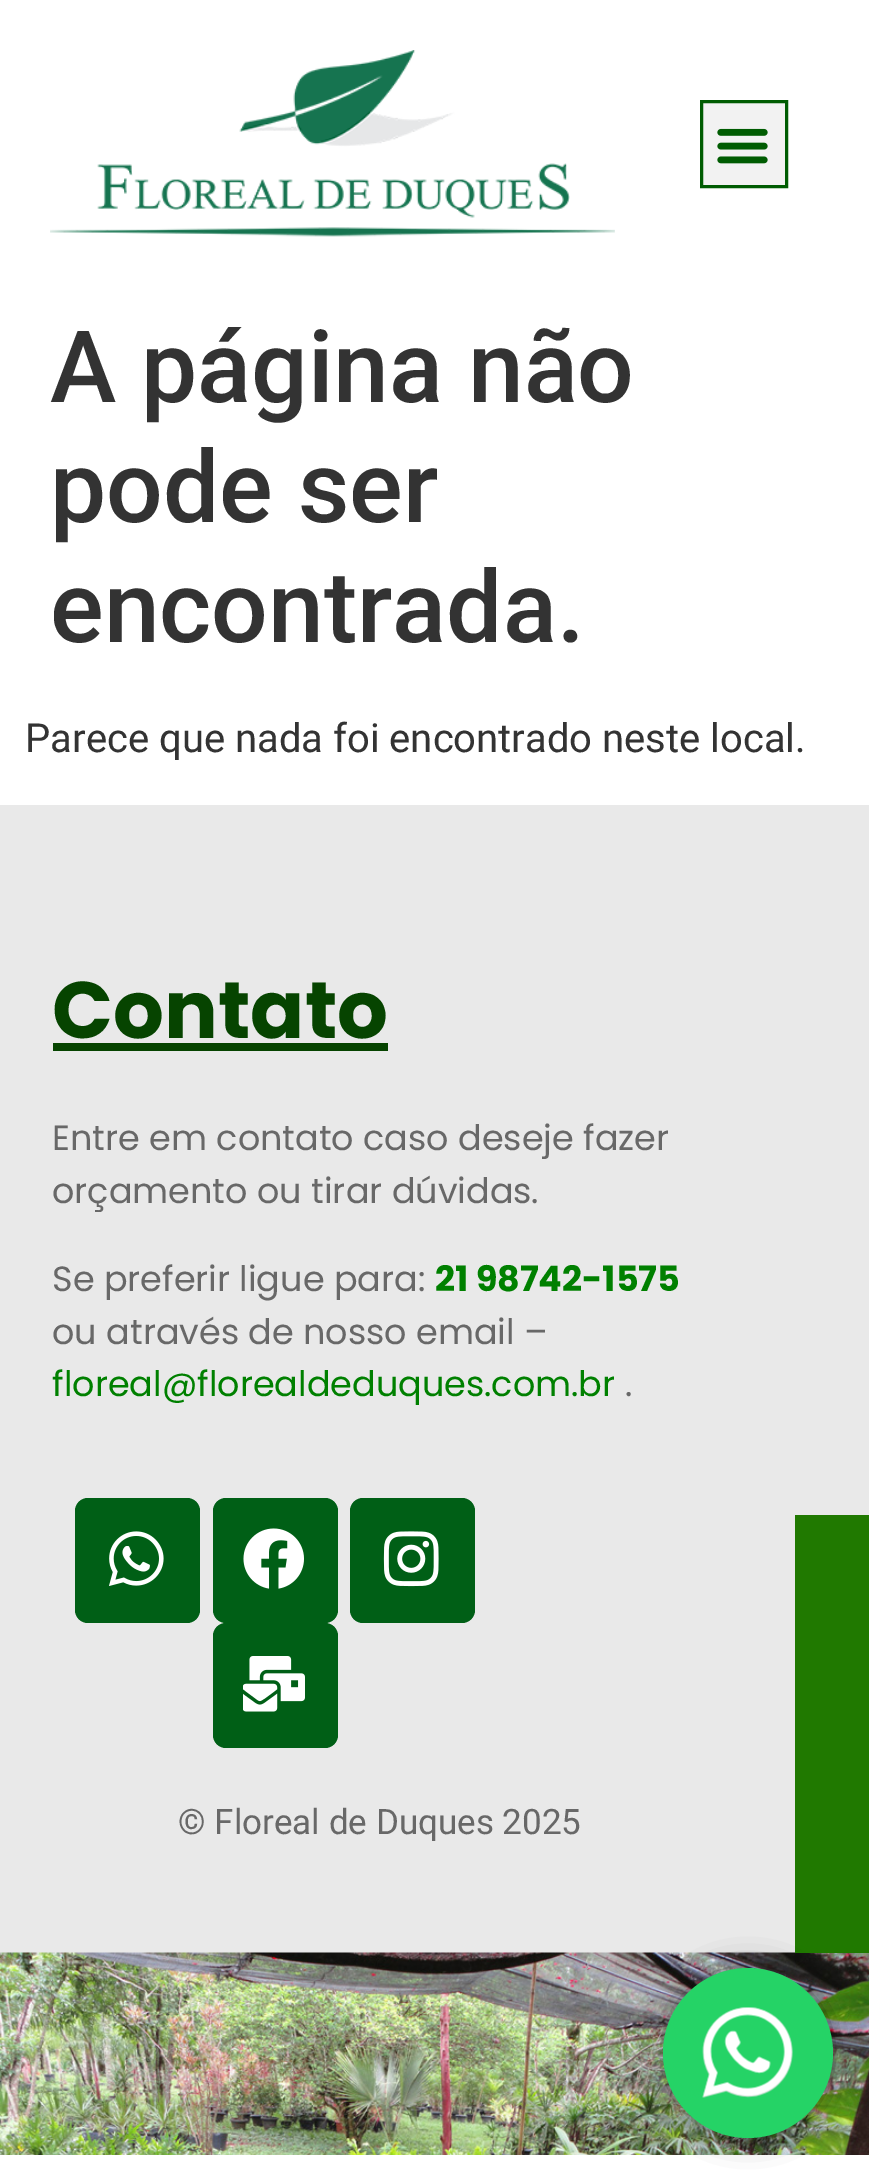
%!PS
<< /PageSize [869 2173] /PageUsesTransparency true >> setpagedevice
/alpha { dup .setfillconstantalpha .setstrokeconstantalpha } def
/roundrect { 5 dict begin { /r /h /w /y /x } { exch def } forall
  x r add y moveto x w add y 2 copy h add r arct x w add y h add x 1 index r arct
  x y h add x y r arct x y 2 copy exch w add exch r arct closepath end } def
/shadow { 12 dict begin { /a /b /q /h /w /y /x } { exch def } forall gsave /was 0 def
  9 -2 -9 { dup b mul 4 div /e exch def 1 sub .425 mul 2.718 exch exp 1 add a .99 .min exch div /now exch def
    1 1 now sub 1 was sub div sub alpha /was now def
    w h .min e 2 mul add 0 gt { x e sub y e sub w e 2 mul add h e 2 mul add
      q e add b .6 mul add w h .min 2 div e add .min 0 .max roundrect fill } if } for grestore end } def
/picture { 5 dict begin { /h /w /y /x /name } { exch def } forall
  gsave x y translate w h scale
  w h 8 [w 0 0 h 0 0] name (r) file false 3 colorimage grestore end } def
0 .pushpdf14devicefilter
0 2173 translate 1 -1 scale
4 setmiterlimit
1 setgray
0 0 869 2173 rectfill
(img1.rgb) 50 50 565 187 picture
0.949 setgray
newpath 701.5 101.5 moveto 786.5 101.5 lineto 786.5 186.5 lineto 701.5 186.5 lineto closepath gsave fill grestore
0 0.361 0.008 setrgbcolor
3 setlinewidth
stroke
(img2.rgb) 717 128 51 36 picture
/Roboto-Medium [100 0 0 -100 0 0] selectfont
0.2 setgray
50 402 moveto (A página não) show
50 522 moveto (pode ser) show
50 642 moveto (encontrada.) show
/Roboto-Regular [40 0 0 -40 0 0] selectfont
25 752 moveto (Parece que nada foi encontrado neste local.) show
0.914 setgray
0 805 869 1148 rectfill
/Poppins-Bold [80 0 0 -80 0 0] selectfont
0.024 0.267 0 setrgbcolor
52 1038 moveto (Contato) show
53 1043 335 8 rectfill
/Poppins-Regular [35 0 0 -35 0 0] selectfont
0.408 setgray
52 1150 moveto (Entre em contato caso deseje fazer) show
52 1203 moveto (orçamento ou tirar dúvidas.) show
52 1291 moveto (Se preferir ligue para:) show
/Poppins-Bold [35 0 0 -35 0 0] selectfont
0 0.502 0 setrgbcolor
435 1291 moveto (21 98742-1575) show
/Poppins-Regular [35 0 0 -35 0 0] selectfont
0.408 setgray
52 1344 moveto (ou através de nosso email –) show
0 0.502 0 setrgbcolor
52 1396 moveto (floreal@florealdeduques.com.br) show
0.408 setgray
625 1396 moveto (.) show
0 0.373 0.086 setrgbcolor
75 1498 125 125 13 roundrect fill
(img3.rgb) 109 1531 55 55 picture
213 1498 125 125 13 roundrect fill
(img4.rgb) 243 1528 61 61 picture
350 1498 125 125 13 roundrect fill
(img5.rgb) 383 1531 56 56 picture
213 1623 125 125 13 roundrect fill
(img6.rgb) 243 1656 62 56 picture
/Roboto-Regular [35 0 0 -35 0 0] selectfont
0.408 setgray
178 1834 moveto (© Floreal de Duques 2025) show
(img7.rgb) 0 1952 869 203 picture
0.125 0.475 0 setrgbcolor
795 1515 74 438 rectfill
0 setgray
663 1968 170 170 85 14 0.5 shadow
0.145 0.827 0.4 setrgbcolor
newpath 748 2053 85 0 360 arc closepath fill
(img8.rgb) 702 2007 91 91 picture
.poppdf14devicefilter showpage
